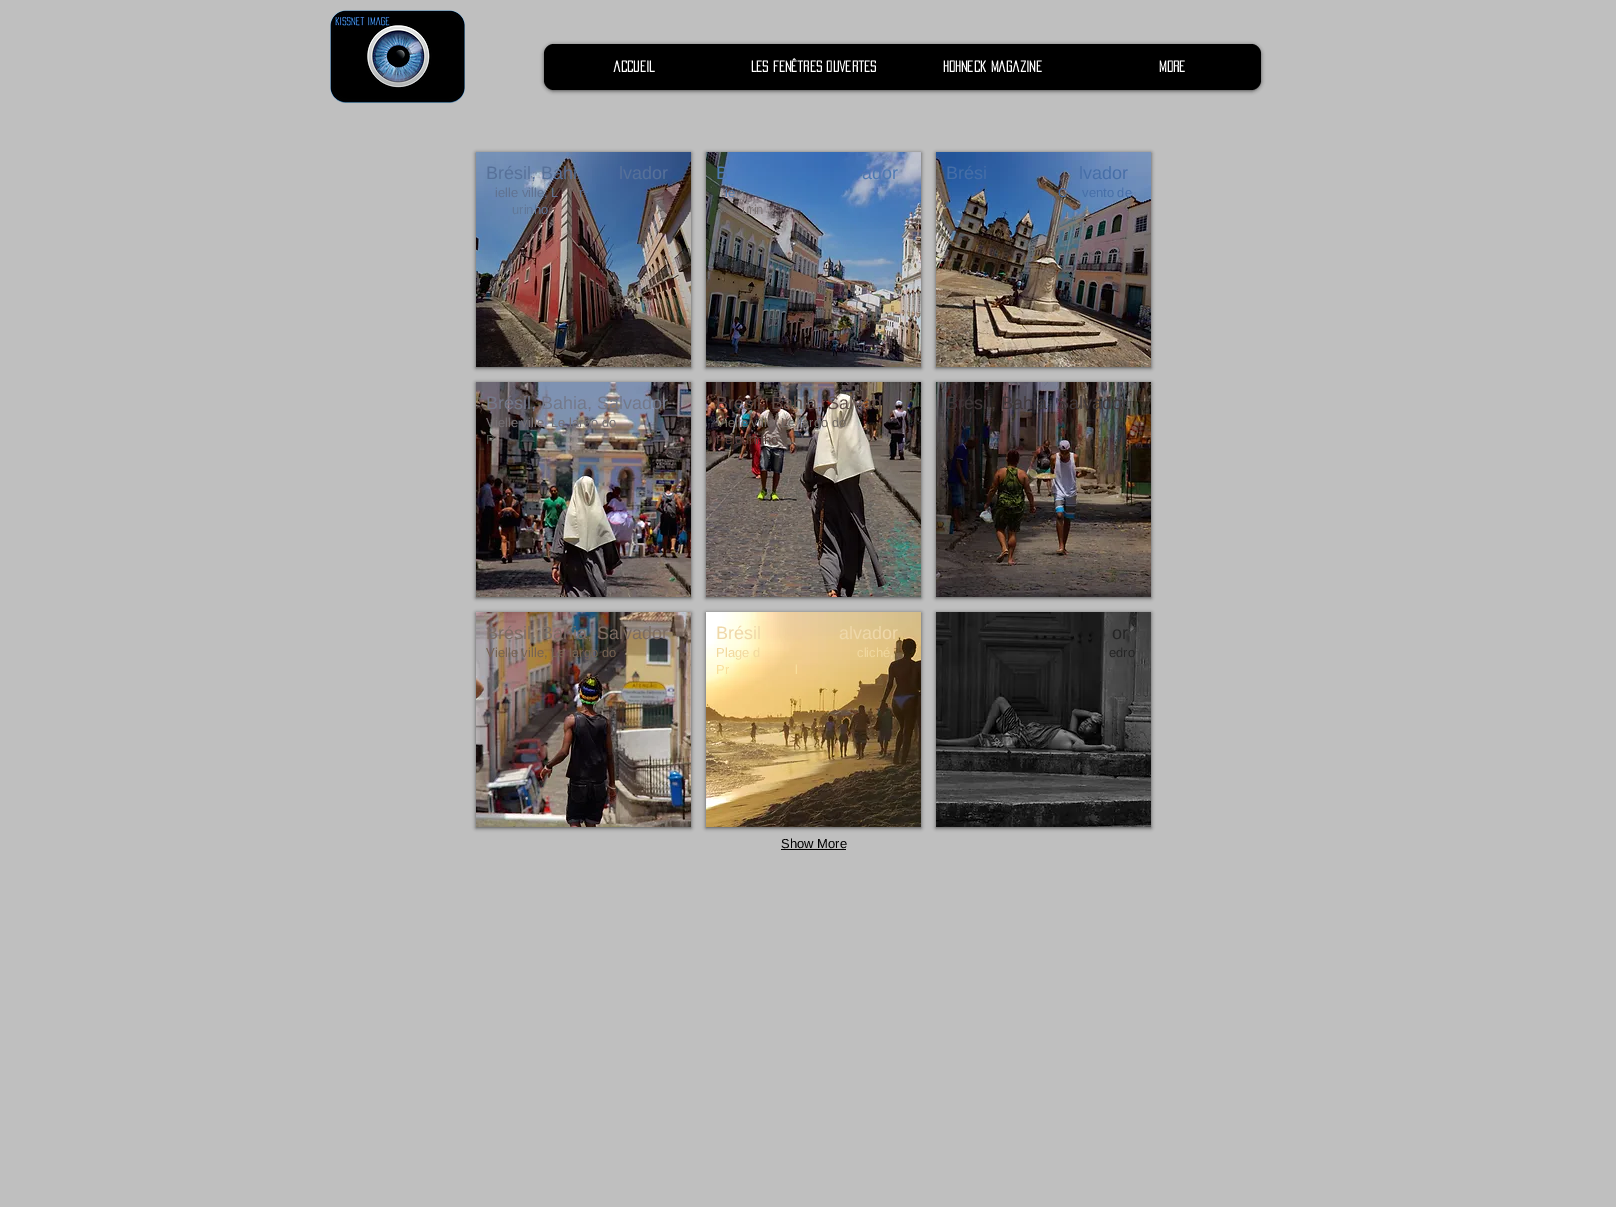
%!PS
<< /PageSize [1616 1207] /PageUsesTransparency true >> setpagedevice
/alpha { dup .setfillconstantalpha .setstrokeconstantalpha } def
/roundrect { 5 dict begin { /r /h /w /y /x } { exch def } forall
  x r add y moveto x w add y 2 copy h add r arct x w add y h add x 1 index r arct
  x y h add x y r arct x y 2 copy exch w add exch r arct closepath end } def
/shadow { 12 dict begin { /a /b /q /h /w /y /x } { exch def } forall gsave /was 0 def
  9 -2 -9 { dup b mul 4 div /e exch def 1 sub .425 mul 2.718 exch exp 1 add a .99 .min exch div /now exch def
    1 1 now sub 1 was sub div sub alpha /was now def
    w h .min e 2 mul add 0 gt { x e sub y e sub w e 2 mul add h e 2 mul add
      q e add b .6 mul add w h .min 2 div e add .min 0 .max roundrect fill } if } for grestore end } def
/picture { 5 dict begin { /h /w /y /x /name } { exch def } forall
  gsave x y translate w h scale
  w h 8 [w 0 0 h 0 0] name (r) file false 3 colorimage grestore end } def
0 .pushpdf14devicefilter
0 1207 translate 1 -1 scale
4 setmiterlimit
0.749 setgray
0 0 1616 1207 rectfill
(img1.rgb) 330 10 135 93 picture
0 setgray
544 45 717 46 10 2 0.6 shadow
544 44 717 46 10 roundrect fill
/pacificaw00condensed-Bold [14 0 0 -14 0 0] selectfont
1 setgray
613 72 moveto (accueil) show
751 72 moveto (Les Fenêtres Ouvertes) show
943 72 moveto (Hohneck Magazine) show
1159 72 moveto (More) show
0 setgray
476 153 215 215 0 2 0.6 shadow
(img2.rgb) 476 152 215 215 picture
/LiberationSans-Regular [18 0 0 -18 0 0] selectfont
0.341 0.443 0.6 setrgbcolor
486 179 moveto (Brésil, Bahi) show
619 179 moveto (lvador) show
/LiberationSans-Regular [13 0 0 -13 0 0] selectfont
0.376 0.447 0.569 setrgbcolor
495 197 moveto (ielle ville, L) show
579 197 moveto (r) show
0.376 0.467 0.596 setrgbcolor
512 214 moveto (urinho) show
0 setgray
706 153 215 215 0 2 0.6 shadow
(img3.rgb) 706 152 215 215 picture
/LiberationSans-Regular [18 0 0 -18 0 0] selectfont
0.302 0.475 0.702 setrgbcolor
716 179 moveto (B) show
862 179 moveto (ador) show
/LiberationSans-Regular [13 0 0 -13 0 0] selectfont
0.322 0.475 0.667 setrgbcolor
725 197 moveto (ie) show
0.494 0.463 0.463 setrgbcolor
742 214 moveto (urin) show
0 setgray
936 153 215 215 0 2 0.6 shadow
(img4.rgb) 936 152 215 215 picture
/LiberationSans-Regular [18 0 0 -18 0 0] selectfont
0.275 0.431 0.655 setrgbcolor
946 179 moveto (Brési) show
1079 179 moveto (lvador) show
/LiberationSans-Regular [13 0 0 -13 0 0] selectfont
1058 197 moveto (C) show
1082 197 moveto (vento de) show
0 setgray
476 383 215 215 0 2 0.6 shadow
(img5.rgb) 476 382 215 215 picture
/LiberationSans-Regular [18 0 0 -18 0 0] selectfont
0.451 0.471 0.537 setrgbcolor
486 409 moveto (Brésil, Bahia, Salvador) show
/LiberationSans-Regular [13 0 0 -13 0 0] selectfont
0.455 0.435 0.447 setrgbcolor
486 427 moveto (Vielle ville, Le largo do) show
0.267 0.267 0.251 setrgbcolor
486 444 moveto (P) show
0 setgray
706 383 215 215 0 2 0.6 shadow
(img6.rgb) 706 382 215 215 picture
/LiberationSans-Regular [18 0 0 -18 0 0] selectfont
0.369 0.302 0.282 setrgbcolor
716 409 moveto (Brésil, Bahia, Salvad) show
/LiberationSans-Regular [13 0 0 -13 0 0] selectfont
0.424 0.396 0.376 setrgbcolor
716 427 moveto (Vielle ville, Le largo do) show
0.349 0.243 0.231 setrgbcolor
716 444 moveto (Pelourinho) show
0 setgray
936 383 215 215 0 2 0.6 shadow
(img7.rgb) 936 382 215 215 picture
/LiberationSans-Regular [18 0 0 -18 0 0] selectfont
0.247 0.216 0.224 setrgbcolor
946 409 moveto (Brésil, Bahia, Salvador) show
0 setgray
476 613 215 215 0 2 0.6 shadow
(img8.rgb) 476 612 215 215 picture
0.482 0.42 0.384 setrgbcolor
486 639 moveto (Brésil, Bahia, Salvador) show
/LiberationSans-Regular [13 0 0 -13 0 0] selectfont
0.463 0.388 0.322 setrgbcolor
486 657 moveto (Vielle ville, Le largo do) show
0 setgray
706 613 215 215 0 2 0.6 shadow
(img9.rgb) 706 612 215 215 picture
/LiberationSans-Regular [18 0 0 -18 0 0] selectfont
0.937 0.847 0.663 setrgbcolor
716 639 moveto (Brésil) show
839 639 moveto (alvador) show
/LiberationSans-Regular [13 0 0 -13 0 0] selectfont
0.945 0.847 0.62 setrgbcolor
716 657 moveto (Plage d) show
857 657 moveto (cliché,) show
0.976 0.871 0.608 setrgbcolor
716 674 moveto (Pr) show
795 674 moveto (l) show
0 setgray
936 613 215 215 0 2 0.6 shadow
(img10.rgb) 936 612 215 215 picture
/LiberationSans-Regular [18 0 0 -18 0 0] selectfont
0.141 setgray
1112 639 moveto (or) show
/LiberationSans-Regular [13 0 0 -13 0 0] selectfont
1109 657 moveto (edro) show
0 setgray
781 848 moveto (Show More) show
781 849 65 1 rectfill
.poppdf14devicefilter showpage
